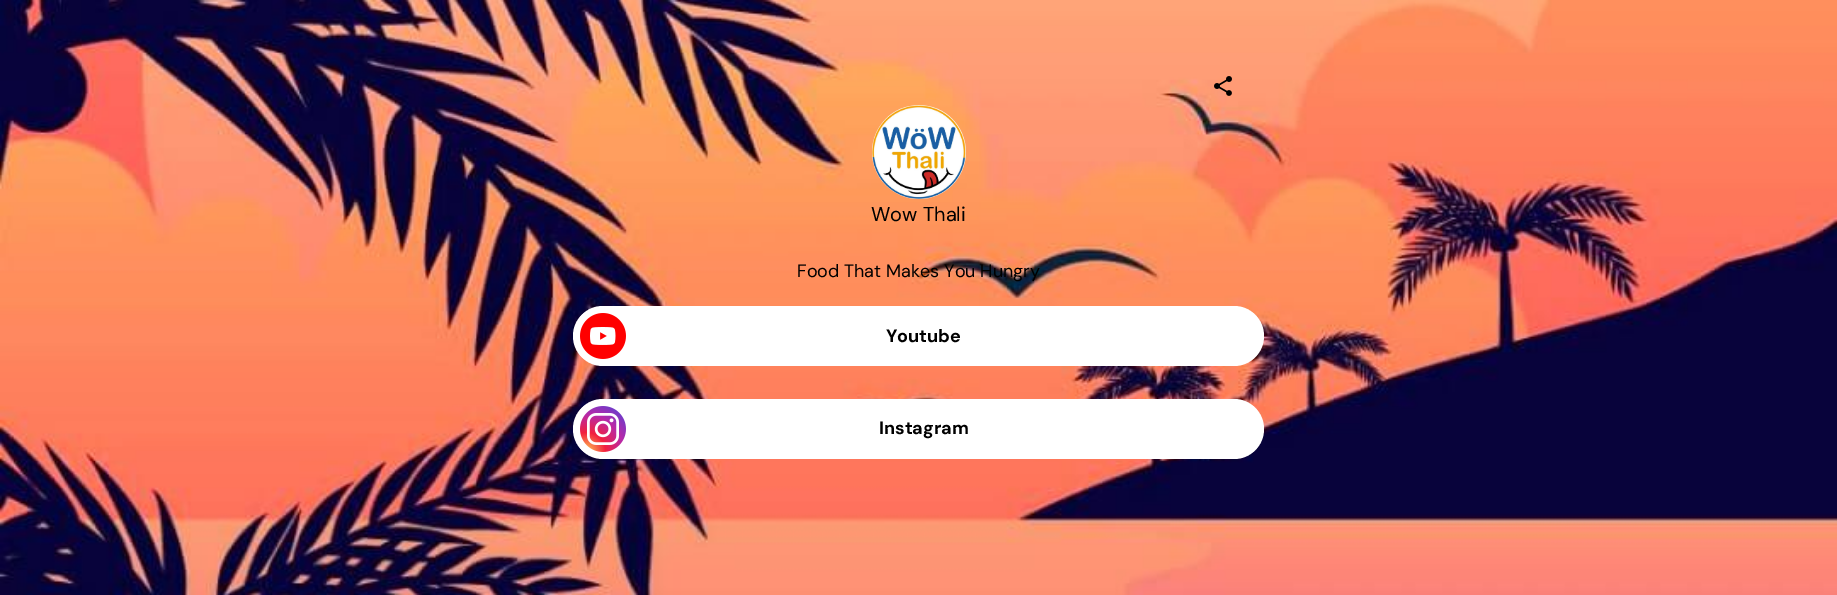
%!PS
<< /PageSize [1837 595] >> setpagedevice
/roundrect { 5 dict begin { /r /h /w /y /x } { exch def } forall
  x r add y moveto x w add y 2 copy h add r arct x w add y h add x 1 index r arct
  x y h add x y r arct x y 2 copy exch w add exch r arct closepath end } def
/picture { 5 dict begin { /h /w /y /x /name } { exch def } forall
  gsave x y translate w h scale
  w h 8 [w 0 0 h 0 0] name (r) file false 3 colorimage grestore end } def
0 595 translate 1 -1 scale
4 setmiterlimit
1 setgray
0 0 1837 595 rectfill
(img1.rgb) 0 0 1837 595 picture
(img2.rgb) 1214 76 18 20 picture
(img3.rgb) 872 105 94 94 picture
/DMSans-Regular [20 0 0 -20 0 0] selectfont
0 setgray
871 221 moveto (Wow Thali) show
/DMSans-Regular [18 0 0 -18 0 0] selectfont
797 277 moveto (Food That Makes You Hungry) show
1 setgray
573 306 691 60 30 roundrect fill
(img4.rgb) 580 313 46 46 picture
/DMSans-Bold [18 0 0 -18 0 0] selectfont
0 setgray
886 342 moveto (Youtube) show
1 setgray
573 399 691 60 30 roundrect fill
(img5.rgb) 580 406 46 46 picture
0 setgray
879 434 moveto (Instagram) show
showpage
